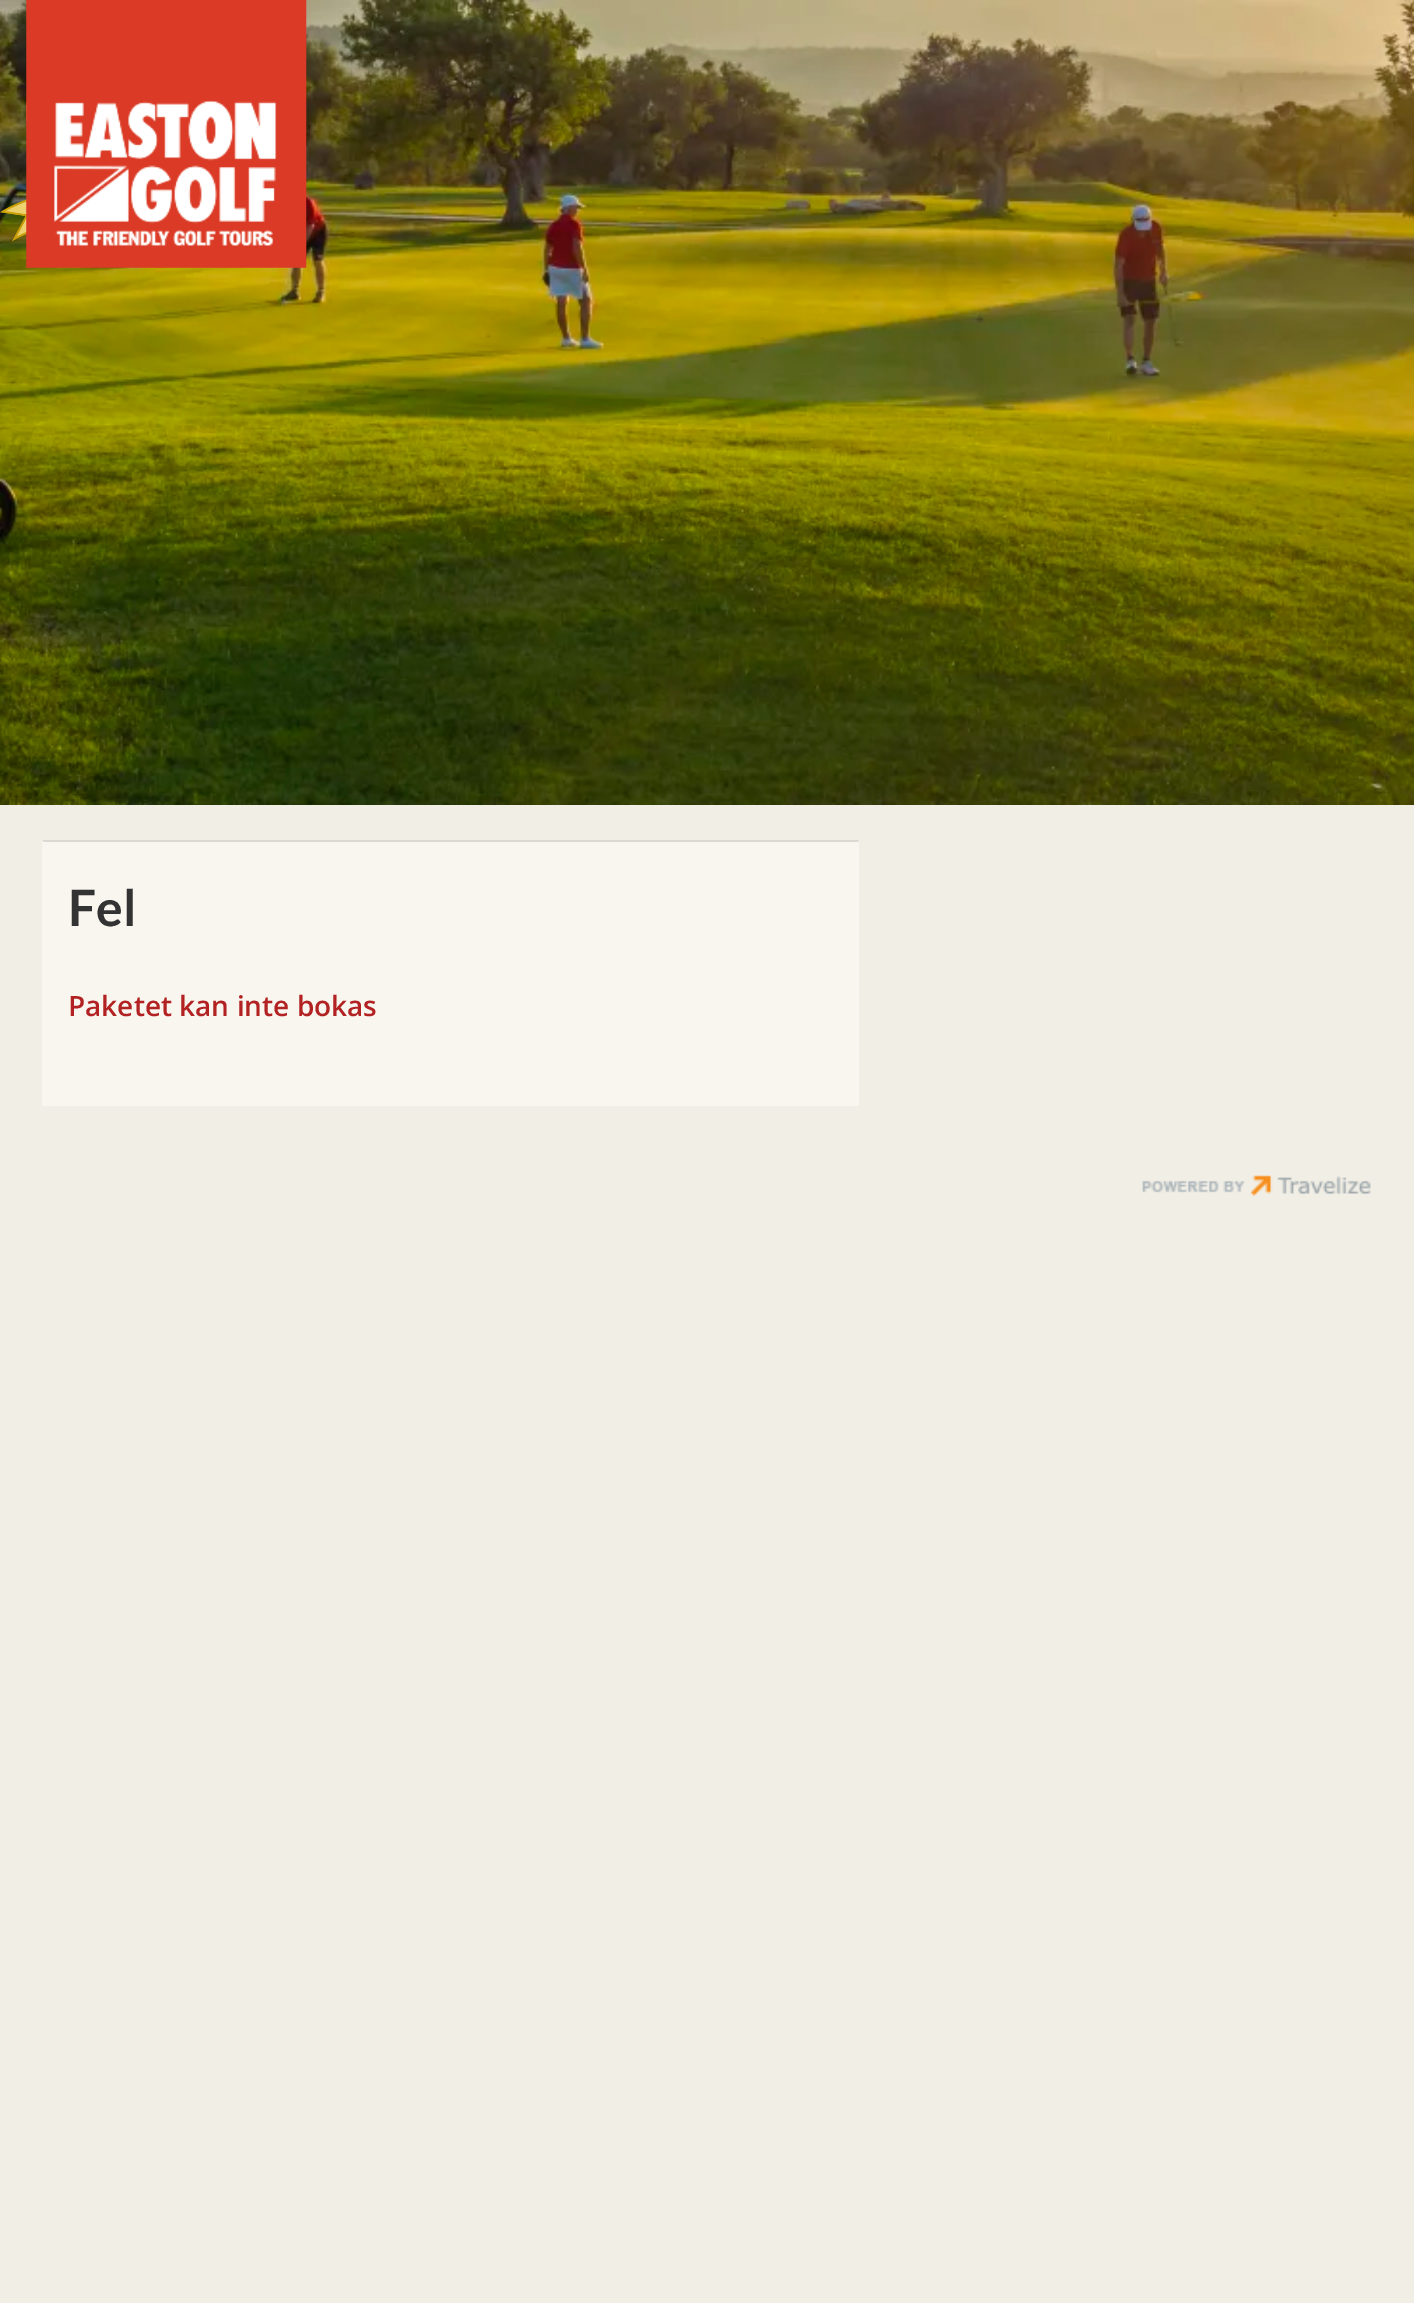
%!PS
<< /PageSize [1414 2303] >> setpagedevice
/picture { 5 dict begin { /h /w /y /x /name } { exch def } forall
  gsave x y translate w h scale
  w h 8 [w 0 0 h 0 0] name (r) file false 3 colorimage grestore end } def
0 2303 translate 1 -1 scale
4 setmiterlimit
0.945 0.933 0.898 setrgbcolor
0 0 1414 2303 rectfill
(img3.rgb) 0 0 1414 805 picture
(img1.rgb) 0 100 27 142 picture
(img2.rgb) 26 0 281 268 picture
0.976 0.961 0.937 setrgbcolor
42 840 817 266 rectfill
0.859 0.843 0.824 setrgbcolor
newpath 42 840 moveto 859 840 lineto 858 842 lineto 44 842 lineto closepath fill
/Lato-Bold [50 0 0 -50 0 0] selectfont
0.2 setgray
68 926 moveto (Fel) show
/OpenSans-SemiBold [28 0 0 -28 0 0] selectfont
0.698 0.133 0.133 setrgbcolor
68 1016 moveto (Paketet kan inte bokas) show
(img4.rgb) 1142 1175 229 21 picture
showpage
